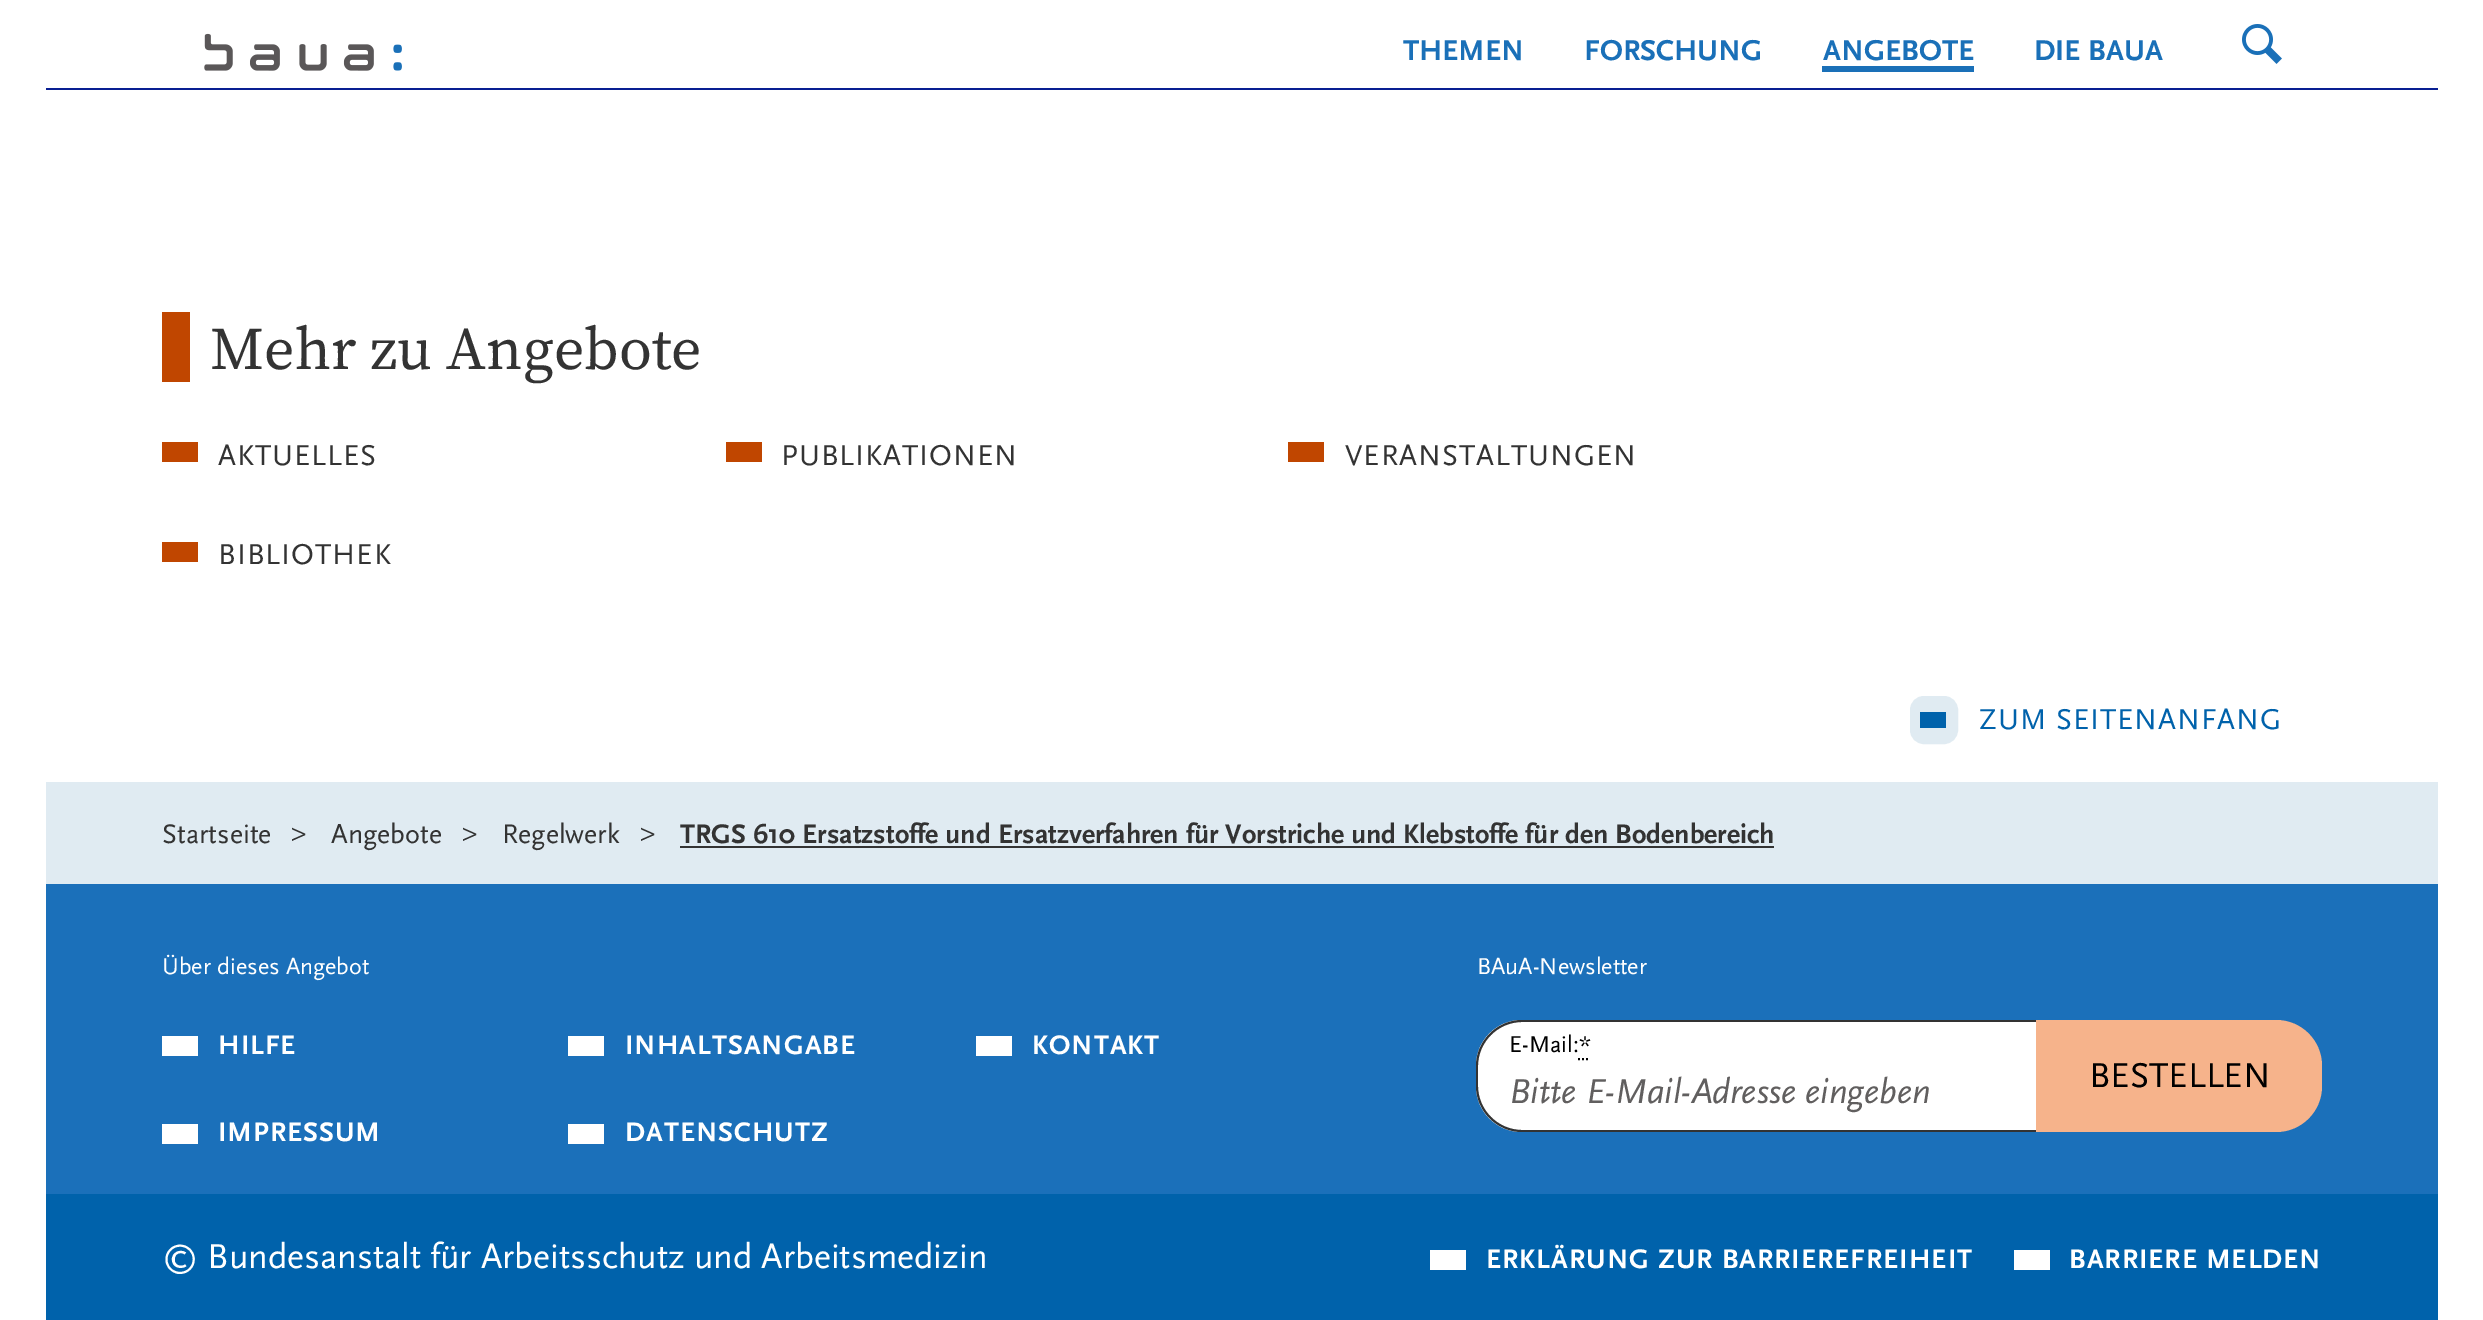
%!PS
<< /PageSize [2483 1320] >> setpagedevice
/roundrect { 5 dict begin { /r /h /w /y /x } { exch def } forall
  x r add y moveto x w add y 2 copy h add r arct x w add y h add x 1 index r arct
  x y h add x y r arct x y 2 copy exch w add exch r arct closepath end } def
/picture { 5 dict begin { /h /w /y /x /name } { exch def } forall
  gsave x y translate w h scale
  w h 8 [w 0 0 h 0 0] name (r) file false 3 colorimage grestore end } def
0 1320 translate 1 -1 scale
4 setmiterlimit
1 setgray
0 0 2483 1320 rectfill
(img1.rgb) 204 33 198 38 picture
/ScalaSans-Bold [30 0 0 -30 0 0] selectfont
0.102 0.439 0.722 setrgbcolor
1403 60 moveto (THEMEN) show
1584 60 moveto (FORSCHUNG) show
1823 60 moveto (ANGEBOTE) show
1822 66 152 6 rectfill
2034 60 moveto (DIE BAUA) show
(img2.rgb) 2242 24 40 40 picture
0.035 0.122 0.573 setrgbcolor
46 88 2392 2 rectfill
0.753 0.275 0 setrgbcolor
162 312 28 70 rectfill
/SourceSerifPro-Regular [60 0 0 -60 0 0] selectfont
0.2 setgray
210 369 moveto (Mehr zu Angebote) show
0.753 0.275 0 setrgbcolor
162 442 36 20 rectfill
/ScalaSans-Regular [30 0 0 -30 0 0] selectfont
0.2 setgray
218 465 moveto 1 0 (AKTUELLES) ashow
0.753 0.275 0 setrgbcolor
726 442 36 20 rectfill
0.2 setgray
781 465 moveto 1 0 (PUBLIKATIONEN) ashow
0.753 0.275 0 setrgbcolor
1288 442 36 20 rectfill
0.2 setgray
1345 465 moveto 1 0 (VERANSTALTUNGEN) ashow
0.753 0.275 0 setrgbcolor
162 542 36 20 rectfill
0.2 setgray
218 564 moveto 1 0 (BIBLIOTHEK) ashow
0.878 0.922 0.949 setrgbcolor
1911 697 46 46 13 roundrect gsave fill grestore
2 setlinewidth
stroke
0 0.384 0.671 setrgbcolor
1979 729 moveto 1 0 (ZUM SEITENANFANG) ashow
1920 712 26 16 rectfill
0.878 0.922 0.949 setrgbcolor
46 782 2392 102 rectfill
/ScalaSans-Regular [28 0 0 -28 0 0] selectfont
0.2 setgray
162 843 moveto (Startseite) show
291 841 moveto (>) show
331 843 moveto (Angebote) show
462 841 moveto (>) show
502 843 moveto (Regelwerk) show
640 841 moveto (>) show
/ScalaSans-Bold [28 0 0 -28 0 0] selectfont
680 843 moveto (TRGS 610 Ersatzstoffe und Ersatzverfahren für Vorstriche und Klebstoffe für den Bodenbereich) show
680 846 1094 2 rectfill
0.106 0.439 0.729 setrgbcolor
46 884 2392 310 rectfill
/ScalaSans-Regular [24 0 0 -24 0 0] selectfont
1 setgray
162 974 moveto (Über dieses Angebot) show
162 1036 36 20 rectfill
/ScalaSans-Bold [28 0 0 -28 0 0] selectfont
218 1054 moveto 1 0 (HILFE) ashow
568 1036 36 20 rectfill
625 1054 moveto 1 0 (INHALTSANGABE) ashow
976 1036 36 20 rectfill
1032 1054 moveto 1 0 (KONTAKT) ashow
162 1124 36 20 rectfill
218 1141 moveto 1 0 (IMPRESSUM) ashow
568 1124 36 20 rectfill
625 1141 moveto 1 0 (DATENSCHUTZ) ashow
/ScalaSans-Regular [24 0 0 -24 0 0] selectfont
1477 974 moveto (BAuA-Newsletter) show
newpath 1522 1020 moveto 2036 1020 lineto 2036 1132 lineto 1522 1132 lineto 1496.5 1132 1476 1111.5 1476 1086 curveto 1476 1066 lineto 1476 1040.5 1496.5 1020 1522 1020 curveto closepath fill
0.2 setgray
newpath 1522 1020 moveto 2036 1020 lineto 2036 1132 lineto 1522 1132 lineto 1497 1132 1476 1111 1476 1086 curveto 1476 1066 lineto 1476 1041 1497 1020 1522 1020 curveto closepath 1522 1022 moveto 2036 1022 lineto 2036 1130 lineto 1522 1130 lineto 1498 1130 1478 1110 1478 1086 curveto 1478 1066 lineto 1478 1042 1498 1022 1522 1022 curveto closepath eofill
0 setgray
1509 1052 moveto (E-Mail:*) show
newpath 1578 1059 moveto 1580 1059 lineto 1582 1059 moveto 1584 1059 lineto 1586 1059 moveto 1588 1059 lineto stroke
/ScalaSans-Italic [36 0 0 -36 0 0] selectfont
0.38 0.373 0.373 setrgbcolor
1509 1103 moveto (Bitte E-Mail-Adresse eingeben) show
0.965 0.702 0.545 setrgbcolor
newpath 2036 1020 moveto 2276 1020 lineto 2301.5 1020 2322 1040.5 2322 1066 curveto 2322 1086 lineto 2322 1111.5 2301.5 1132 2276 1132 curveto 2036 1132 lineto closepath fill
/ScalaSans-Regular [36 0 0 -36 0 0] selectfont
0 setgray
2089 1087 moveto (BESTELLEN) show
0 0.384 0.671 setrgbcolor
46 1194 2392 126 rectfill
1 setgray
162 1268 moveto (© Bundesanstalt für Arbeitsschutz und Arbeitsmedizin) show
1430 1250 36 20 rectfill
/ScalaSans-Bold [28 0 0 -28 0 0] selectfont
1486 1268 moveto 1 0 (ERKLÄRUNG ZUR BARRIEREFREIHEIT) ashow
2014 1250 36 20 rectfill
2069 1268 moveto 1 0 (BARRIERE MELDEN) ashow
showpage
